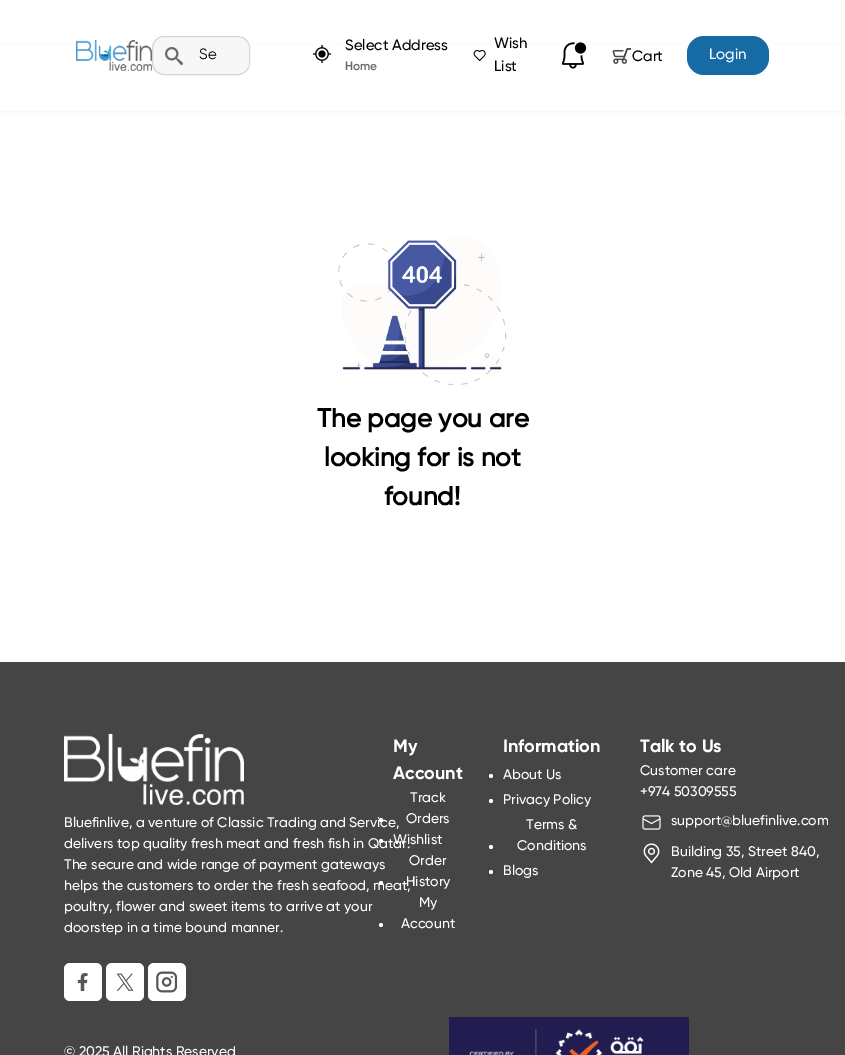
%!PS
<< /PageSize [845 1055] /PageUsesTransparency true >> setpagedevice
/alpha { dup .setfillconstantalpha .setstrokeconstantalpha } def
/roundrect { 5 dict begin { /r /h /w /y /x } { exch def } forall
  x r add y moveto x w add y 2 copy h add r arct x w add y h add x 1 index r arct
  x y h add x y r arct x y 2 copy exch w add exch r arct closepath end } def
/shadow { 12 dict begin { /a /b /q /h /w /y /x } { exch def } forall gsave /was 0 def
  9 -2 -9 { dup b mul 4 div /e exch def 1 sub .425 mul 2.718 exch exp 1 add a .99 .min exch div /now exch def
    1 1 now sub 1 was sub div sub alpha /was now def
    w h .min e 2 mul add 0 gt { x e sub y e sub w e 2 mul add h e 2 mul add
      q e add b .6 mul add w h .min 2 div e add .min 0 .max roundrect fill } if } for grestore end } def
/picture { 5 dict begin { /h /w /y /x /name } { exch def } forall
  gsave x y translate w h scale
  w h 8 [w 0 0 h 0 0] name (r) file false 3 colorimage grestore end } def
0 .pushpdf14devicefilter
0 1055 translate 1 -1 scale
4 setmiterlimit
1 setgray
0 0 845 1055 rectfill
0.184 setgray
0 48 845 62 0 3 0.08 shadow
1 setgray
0 45 845 66 rectfill
(img1.rgb) 76 40 76 31 picture
0.969 setgray
152.5 36.5 97 38 11.5 roundrect gsave fill grestore
0.831 setgray
stroke
(img2.rgb) 165 47 18 18 picture
gsave
153 37 96 37 11 roundrect clip newpath
0.969 setgray
183 40 66 31 8 roundrect fill
grestore
/Gilroy-Regular [15 0 0 -15 0 0] selectfont
0 setgray
199 59 moveto (Se) show
(img3.rgb) 312 44 20 20 picture
/Gilroy-Medium [15 0 0 -15 0 0] selectfont
345 50 moveto (Select Address) show
/Gilroy-SemiBold [12 0 0 -12 0 0] selectfont
0.408 setgray
345 70 moveto (Home) show
(img4.rgb) 473 50 13 11 picture
/Gilroy-Medium [15 0 0 -15 0 0] selectfont
0 setgray
494 48 moveto (Wish) show
494 71 moveto (List) show
(img5.rgb) 561 42 26 27 picture
(img6.rgb) 612 48 20 16 picture
632 61 moveto (Cart) show
0.09 0.42 0.643 setrgbcolor
687 36 82 39 17 roundrect fill
1 setgray
709 59 moveto (Login) show
(img7.rgb) 338 236 169 149 picture
/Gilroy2-Bold [26 0 0 -26 0 0] selectfont
0 setgray
317 427 moveto (The page you are) show
324 466 moveto (looking for is not) show
384 505 moveto (found!) show
0.271 setgray
0 662 845 393 rectfill
(img8.rgb) 64 734 180 71 picture
/Gilroy-Medium [14 0 0 -14 0 0] selectfont
1 setgray
64 827 moveto (Bluefinlive, a venture of Classic Trading and Service,) show
64 848 moveto (delivers top quality fresh meat and fresh fish in Qatar.) show
64 869 moveto (The secure and wide range of payment gateways) show
64 890 moveto (helps the customers to order the fresh seafood, meat,) show
64 911 moveto (poultry, flower and sweet items to arrive at your) show
64 932 moveto (doorstep in a time bound manner.) show
64 963 38 38 6 roundrect fill
(img9.rgb) 77 973 11 18 picture
106 963 38 38 6 roundrect fill
(img10.rgb) 116 973 18 18 picture
148 963 38 38 6 roundrect fill
(img11.rgb) 156 971 22 22 picture
/Gilroy-Bold [18 0 0 -18 0 0] selectfont
393 752 moveto (My) show
393 779 moveto (Account) show
newpath 381 820 2 0 360 arc closepath fill
/Gilroy-Medium [14 0 0 -14 0 0] selectfont
410 802 moveto (Track) show
406 823 moveto (Orders) show
newpath 381 841 2 0 360 arc closepath fill
393 844 moveto (Wishlist) show
newpath 381 883 2 0 360 arc closepath fill
409 865 moveto (Order) show
406 886 moveto (History) show
newpath 381 925 2 0 360 arc closepath fill
419 907 moveto (My) show
401 928 moveto (Account) show
/Gilroy-Bold [18 0 0 -18 0 0] selectfont
503 752 moveto (Information) show
newpath 491 776 2 0 360 arc closepath fill
/Gilroy-Medium [14 0 0 -14 0 0] selectfont
503 779 moveto (About Us) show
newpath 491 801 2 0 360 arc closepath fill
503 804 moveto (Privacy Policy) show
newpath 491 847 2 0 360 arc closepath fill
526 829 moveto (Terms &) show
517 850 moveto (Conditions) show
newpath 491 872 2 0 360 arc closepath fill
503 875 moveto (Blogs) show
/Gilroy-Bold [18 0 0 -18 0 0] selectfont
640 752 moveto (Talk to Us) show
/Gilroy-Medium [14 0 0 -14 0 0] selectfont
640 775 moveto (Customer care) show
640 796 moveto (+974 50309555) show
(img12.rgb) 642 815 19 15 picture
671 825 moveto (support@bluefinlive.com) show
(img13.rgb) 643 843 17 21 picture
671 856 moveto (Building 35, Street 840,) show
671 877 moveto (Zone 45, Old Airport) show
64 1056 moveto (© 2025 All Rights Reserved) show
(img14.rgb) 449 1017 240 38 picture
.poppdf14devicefilter showpage
